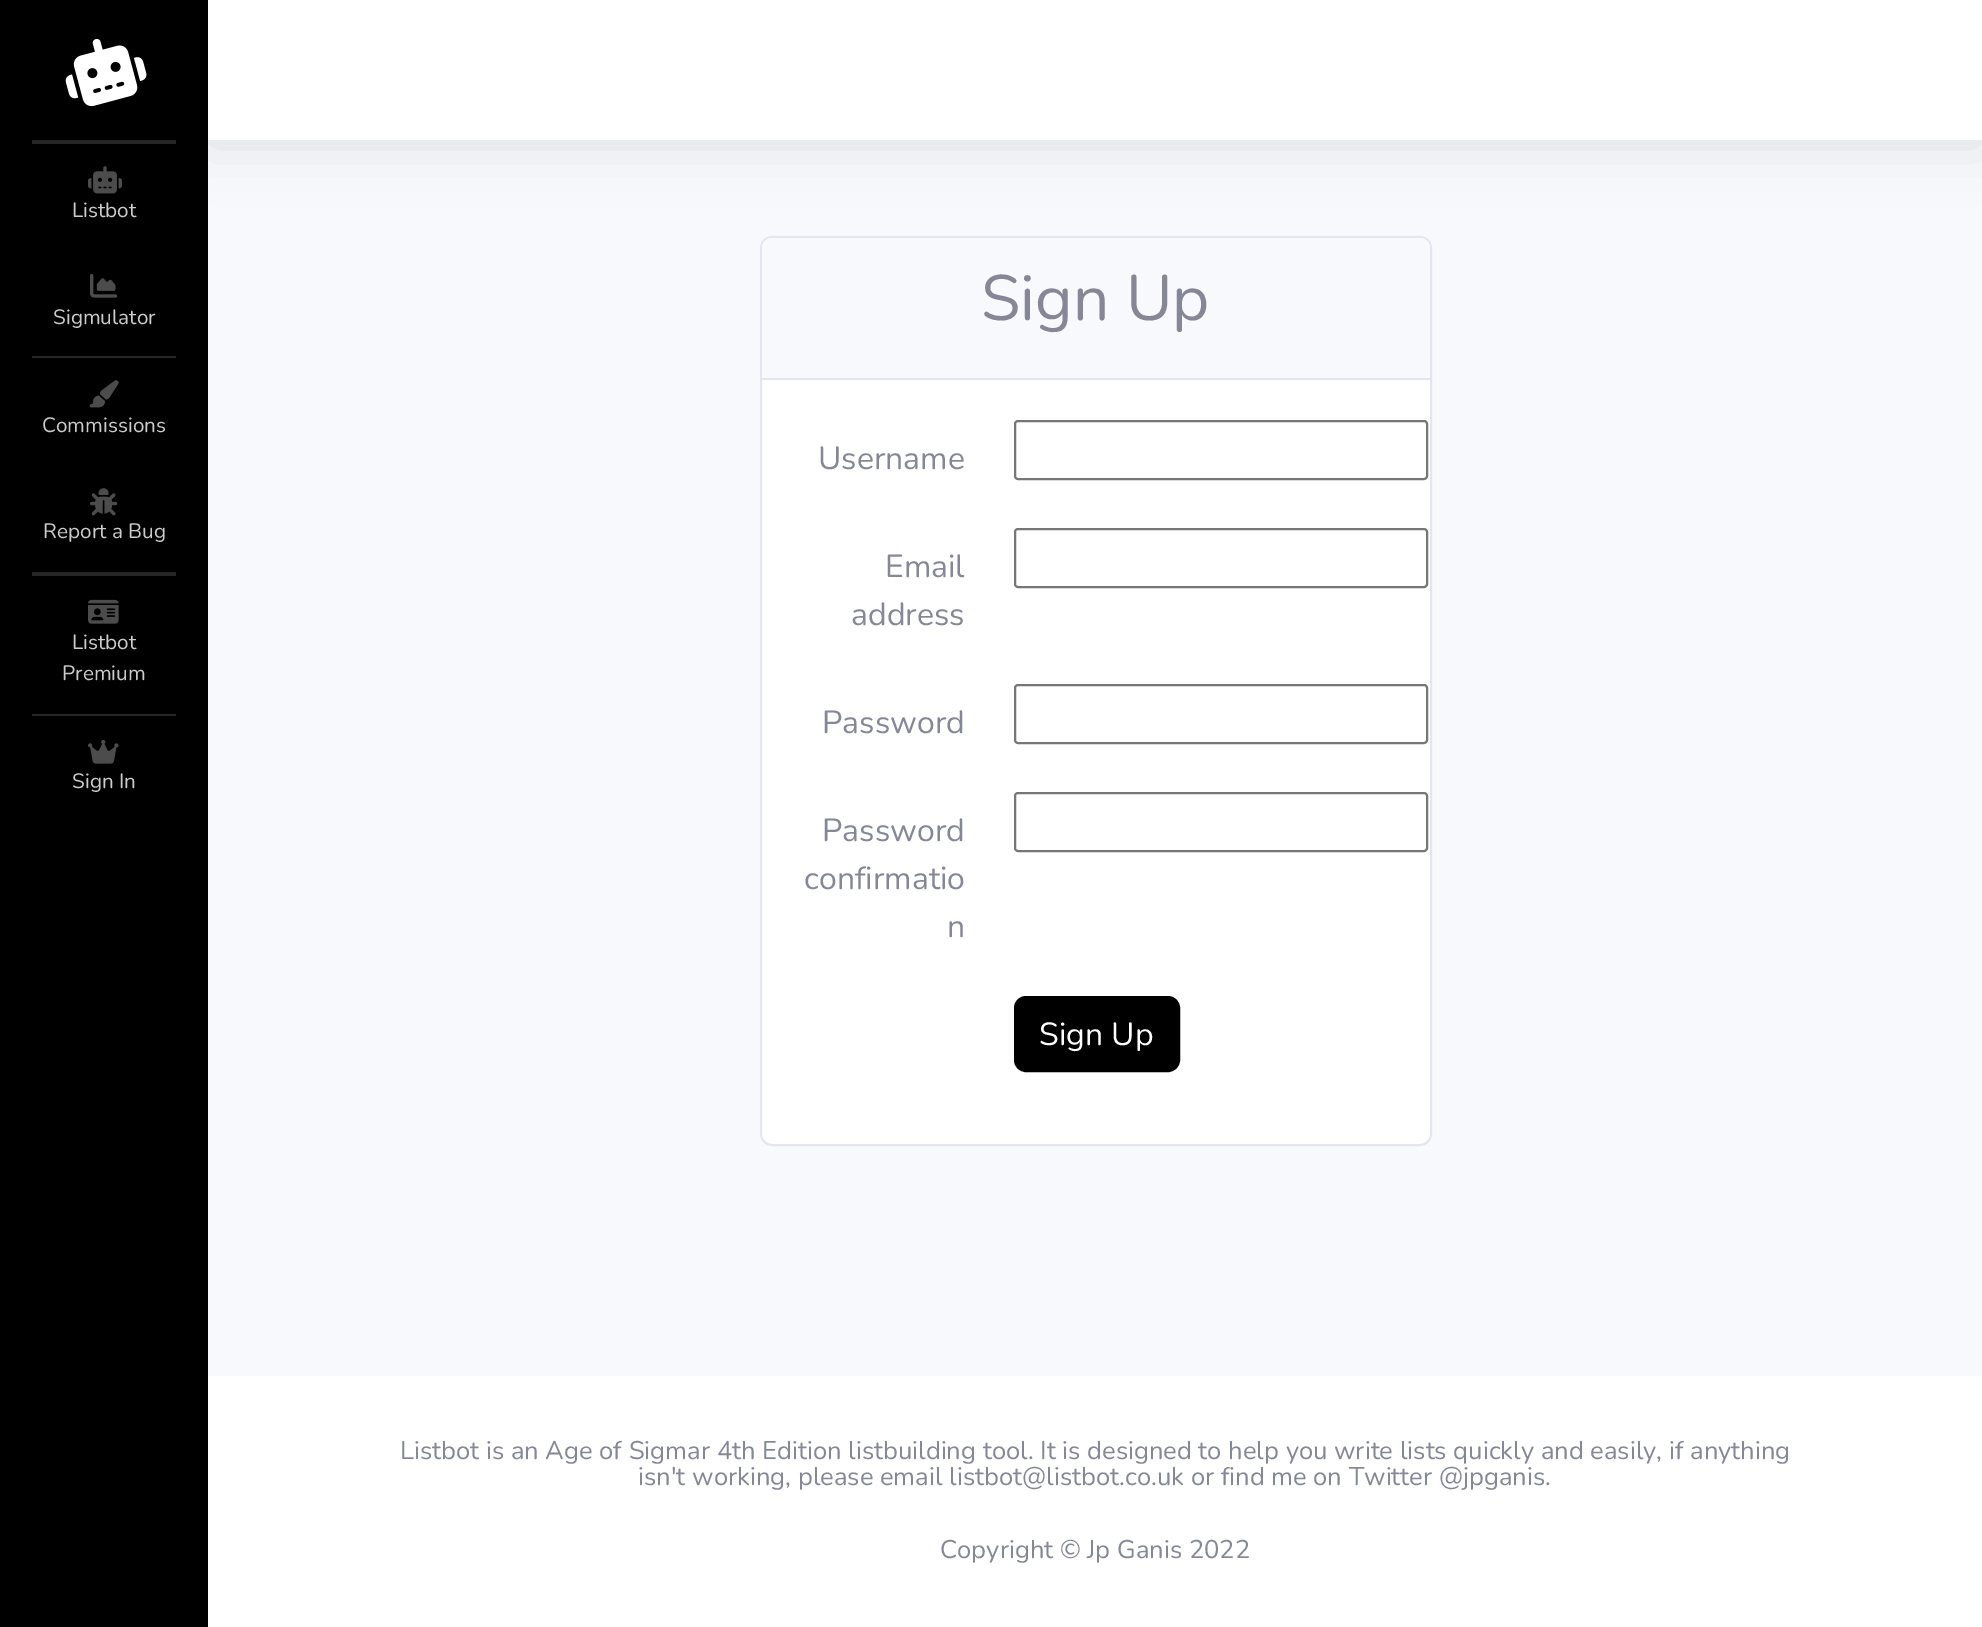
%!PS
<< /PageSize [1982 1627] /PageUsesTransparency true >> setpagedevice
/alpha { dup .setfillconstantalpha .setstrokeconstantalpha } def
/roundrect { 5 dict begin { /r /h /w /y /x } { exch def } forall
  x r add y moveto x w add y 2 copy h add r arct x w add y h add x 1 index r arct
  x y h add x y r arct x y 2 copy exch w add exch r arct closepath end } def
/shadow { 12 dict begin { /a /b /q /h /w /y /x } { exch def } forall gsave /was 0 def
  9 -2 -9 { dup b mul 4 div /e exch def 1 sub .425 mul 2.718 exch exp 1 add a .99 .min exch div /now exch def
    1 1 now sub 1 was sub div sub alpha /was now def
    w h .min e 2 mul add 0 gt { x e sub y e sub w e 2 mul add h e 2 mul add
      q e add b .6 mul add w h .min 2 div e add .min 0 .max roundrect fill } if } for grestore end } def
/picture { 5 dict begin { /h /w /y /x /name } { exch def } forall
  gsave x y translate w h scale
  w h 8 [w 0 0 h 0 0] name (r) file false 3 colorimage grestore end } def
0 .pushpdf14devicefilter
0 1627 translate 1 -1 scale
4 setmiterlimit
0 setgray
0 0 1982 1627 rectfill
0.149 setgray
32 140 144 4 rectfill
0.973 0.976 0.988 setrgbcolor
208 140 1774 1236 rectfill
gsave
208 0 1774 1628 rectclip
0.227 0.231 0.271 setrgbcolor
208 4 1774 140 0 28 0.15 shadow
grestore
(img1.rgb) 65 38 82 69 picture
(img2.rgb) 88 166 34 28 picture
/Nunito-Regular [20.75 0 0 -20.75 0 0] selectfont
0.8 setgray
72 217 moveto (Listbot) show
(img3.rgb) 90 274 28 24 picture
53 324 moveto (Sigmulator) show
0.149 setgray
32 356 144 2 rectfill
(img4.rgb) 89 380 30 28 picture
0.8 setgray
42 432 moveto (Commissions) show
(img5.rgb) 90 488 28 28 picture
43 538 moveto (Report a Bug) show
0.149 setgray
32 572 144 4 rectfill
(img6.rgb) 88 599 31 25 picture
0.8 setgray
72 649 moveto (Listbot) show
62 680 moveto (Premium) show
0.149 setgray
32 714 144 2 rectfill
(img7.rgb) 88 740 31 24 picture
0.8 setgray
72 788 moveto (Sign In) show
1 setgray
208 0 1774 140 rectfill
761 237 670 908 11 roundrect gsave fill grestore
0.89 0.902 0.941 setrgbcolor
2 setlinewidth
stroke
0.973 0.976 0.988 setrgbcolor
newpath 772 238 moveto 1420 238 lineto 1425.5 238 1430 242.5 1430 248 curveto 1430 380 lineto 762 380 lineto 762 248 lineto 762 242.5 766.5 238 772 238 curveto closepath fill
0.89 0.902 0.941 setrgbcolor
762 378 668 2 rectfill
/Nunito-Regular [64 0 0 -64 0 0] selectfont
0.522 0.529 0.588 setrgbcolor
981 320 moveto (Sign Up) show
/Nunito-Regular [32 0 0 -32 0 0] selectfont
818 469 moveto (Username) show
0.463 setgray
1015 421 412 58 3 roundrect stroke
0.522 0.529 0.588 setrgbcolor
885 577 moveto (Email) show
851 625 moveto (address) show
0.463 setgray
1015 529 412 58 3 roundrect stroke
0.522 0.529 0.588 setrgbcolor
822 733 moveto (Password) show
0.463 setgray
1015 685 412 58 3 roundrect stroke
0.522 0.529 0.588 setrgbcolor
822 841 moveto (Password) show
804 889 moveto (confirmatio) show
947 937 moveto (n) show
0.463 setgray
1015 793 412 58 3 roundrect stroke
0 setgray
1015 997 164 74 11 roundrect gsave fill grestore
stroke
1 setgray
1039 1045 moveto (Sign Up) show
208 1376 1774 251 rectfill
/Nunito-Regular [25.6 0 0 -25.6 0 0] selectfont
0.522 0.529 0.588 setrgbcolor
400 1459 moveto (Listbot is an Age of Sigmar 4th Edition listbuilding tool. It is designed to help you write lists quickly and easily,) show
1669 1459 moveto (if anything) show
638 1485 moveto (isn't working, please email listbot@listbot.co.uk or find me on Twitter @jpganis.) show
940 1558 moveto (Copyright © Jp Ganis 2022) show
.poppdf14devicefilter showpage
